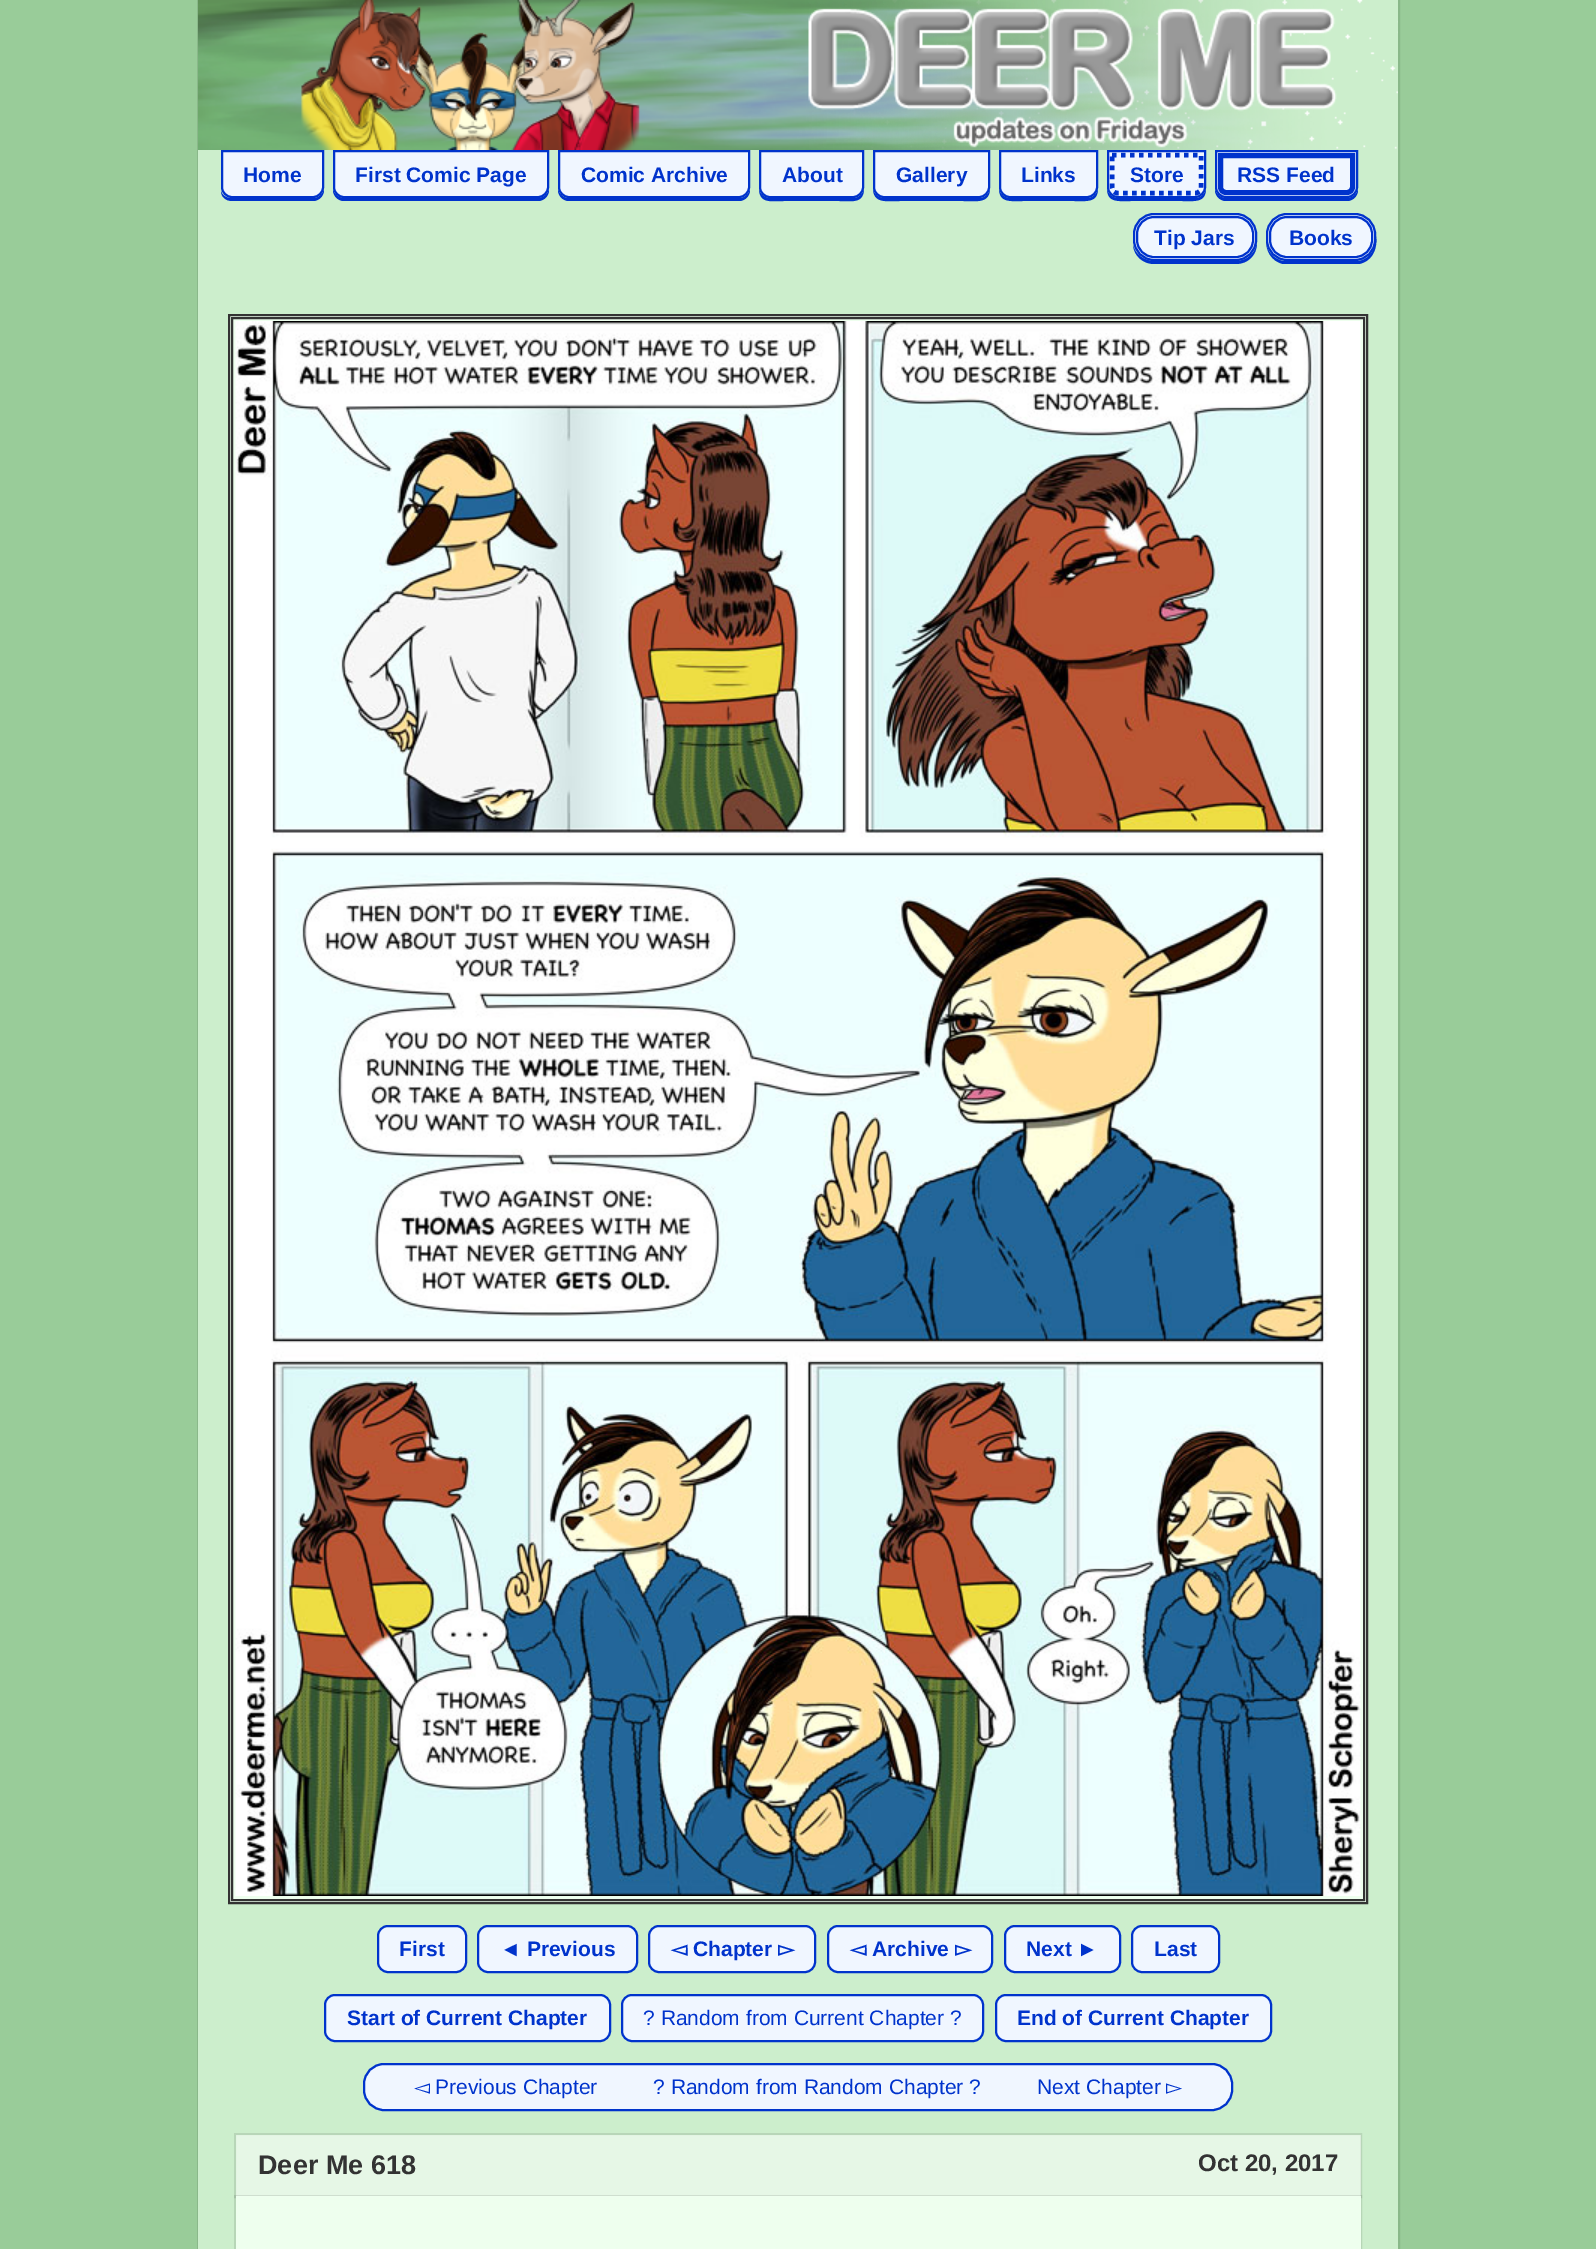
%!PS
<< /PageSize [1596 2249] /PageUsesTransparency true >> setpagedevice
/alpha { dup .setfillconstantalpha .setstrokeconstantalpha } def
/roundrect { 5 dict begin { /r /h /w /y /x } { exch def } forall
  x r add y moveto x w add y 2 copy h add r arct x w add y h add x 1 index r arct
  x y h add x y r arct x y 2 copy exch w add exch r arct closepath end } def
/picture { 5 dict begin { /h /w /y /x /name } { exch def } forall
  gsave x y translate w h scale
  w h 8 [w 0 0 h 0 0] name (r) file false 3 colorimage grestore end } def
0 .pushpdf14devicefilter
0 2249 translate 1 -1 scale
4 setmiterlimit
0.6 0.8 0.6 setrgbcolor
0 0 1596 2249 rectfill
0.541 0.722 0.541 setrgbcolor
2 setlinewidth
198 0 1201 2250 rectstroke
0.8 0.933 0.8 setrgbcolor
198 0 1200 2249 rectfill
(img1.rgb) 817 0 581 149 picture
(img2.rgb) 198 0 1139 150 picture
0 0.2 0.8 setrgbcolor
newpath 221 191 moveto 221 197 226 201 232 201 curveto 313 201 lineto 319 201 324 196 324 190 curveto 324 188 lineto 324 193 319 198 314 198 curveto 231 198 lineto 226 198 222 195 221 191 curveto closepath fill
0.941 0.965 1 setrgbcolor
newpath 222 151 moveto 323 151 lineto 323 187 lineto 323 192.5 318.5 197 313 197 curveto 232 197 lineto 226.5 197 222 192.5 222 187 curveto closepath gsave fill grestore
0 0.2 0.8 setrgbcolor
stroke
/LiberationSans-Bold [21 0 0 -21 0 0] selectfont
243 182 moveto (Home) show
newpath 333 188 moveto 333 190 lineto 333 196 338 201 344 201 curveto 538 201 lineto 544 201 549 196 549 190 curveto 549 188 lineto 549 193 544 198 538 198 curveto 344 198 lineto 338 198 333 193 333 188 curveto closepath fill
0.941 0.965 1 setrgbcolor
newpath 334 151 moveto 548 151 lineto 548 187 lineto 548 192.5 543.5 197 538 197 curveto 344 197 lineto 338.5 197 334 192.5 334 187 curveto closepath gsave fill grestore
0 0.2 0.8 setrgbcolor
stroke
355 182 moveto (First Comic Page) show
newpath 558 188 moveto 558 190 lineto 558 196 563 201 569 201 curveto 739 201 lineto 745 201 750 196 750 190 curveto 750 188 lineto 750 193 745 198 740 198 curveto 568 198 lineto 563 198 558 193 558 188 curveto closepath fill
0.941 0.965 1 setrgbcolor
newpath 559 151 moveto 749 151 lineto 749 187 lineto 749 192.5 744.5 197 739 197 curveto 569 197 lineto 563.5 197 559 192.5 559 187 curveto closepath gsave fill grestore
0 0.2 0.8 setrgbcolor
stroke
581 182 moveto (Comic Archive) show
newpath 759 188 moveto 759 204 771 201 784 201 curveto 839 201 lineto 852 201 864 204 864 188 curveto 864 193 859 198 854 198 curveto 770 198 lineto 764 198 759 193 759 188 curveto closepath fill
0.941 0.965 1 setrgbcolor
newpath 760 151 moveto 863 151 lineto 863 187 lineto 863 192.5 858.5 197 853 197 curveto 770 197 lineto 764.5 197 760 192.5 760 187 curveto closepath gsave fill grestore
0 0.2 0.8 setrgbcolor
stroke
782 182 moveto (About) show
newpath 873 188 moveto 873 204 887 201 900 201 curveto 963 201 lineto 976 201 990 204 990 188 curveto 990 193 985 198 980 198 curveto 884 198 lineto 878 198 873 193 873 188 curveto closepath fill
0.941 0.965 1 setrgbcolor
newpath 874 151 moveto 989 151 lineto 989 187 lineto 989 192.5 984.5 197 979 197 curveto 884 197 lineto 878.5 197 874 192.5 874 187 curveto closepath gsave fill grestore
0 0.2 0.8 setrgbcolor
stroke
896 182 moveto (Gallery) show
newpath 999 188 moveto 999 203 1010 201 1023 201 curveto 1074 201 lineto 1087 201 1098 203 1098 188 curveto 1098 193 1093 198 1088 198 curveto 1010 198 lineto 1004 198 999 193 999 188 curveto closepath fill
0.941 0.965 1 setrgbcolor
newpath 1000 151 moveto 1097 151 lineto 1097 187 lineto 1097 192.5 1092.5 197 1087 197 curveto 1010 197 lineto 1004.5 197 1000 192.5 1000 187 curveto closepath gsave fill grestore
0 0.2 0.8 setrgbcolor
stroke
1021 182 moveto (Links) show
newpath 1107 188 moveto 1107 203 1118 201 1131 201 curveto 1182 201 lineto 1195 201 1206 203 1206 188 curveto 1206 193 1201 198 1196 198 curveto 1118 198 lineto 1112 198 1107 193 1107 188 curveto closepath fill
0.941 0.965 1 setrgbcolor
newpath 1108 151 moveto 1205 151 lineto 1205 187 lineto 1205 192.5 1200.5 197 1195 197 curveto 1118 197 lineto 1112.5 197 1108 192.5 1108 187 curveto closepath gsave fill grestore
0 0.2 0.8 setrgbcolor
stroke
4.5 setlinewidth
[4.5 4.5] 0 setdash
newpath 1112 155 moveto 1201 155 lineto 1201 187.5 lineto 1201 190.5 1198.5 193 1195.5 193 curveto 1117.5 193 lineto 1114.5 193 1112 190.5 1112 187.5 curveto closepath stroke
1130 182 moveto (Store) show
newpath 1215 188 moveto 1215 190 lineto 1215 196 1220 201 1226 201 curveto 1347 201 lineto 1353 201 1358 196 1358 190 curveto 1358 153 lineto 1358 188 lineto 1358 193 1353 198 1347 198 curveto 1226 198 lineto 1220 198 1215 193 1215 188 curveto closepath fill
0.941 0.965 1 setrgbcolor
newpath 1216 151 moveto 1357 151 lineto 1357 187 lineto 1357 192.5 1352.5 197 1347 197 curveto 1226 197 lineto 1220.5 197 1216 192.5 1216 187 curveto closepath gsave fill grestore
0 0.2 0.8 setrgbcolor
2 setlinewidth
[] 0 setdash
stroke
5 setlinewidth
newpath 1220.5 155.5 moveto 1352.5 155.5 lineto 1352.5 187 lineto 1352.5 190 1350 192.5 1347 192.5 curveto 1226 192.5 lineto 1223 192.5 1220.5 190 1220.5 187 curveto closepath stroke
1237 182 moveto (RSS Feed) show
newpath 1133 245 moveto 1134 256 1143 264 1154 264 curveto 1236 264 lineto 1248 264 1257 255 1257 243 curveto 1257 240 lineto 1257 252 1248 261 1236 261 curveto 1154 261 lineto 1144 261 1135 254 1133 245 curveto closepath fill
0.941 0.965 1 setrgbcolor
1134 214 122 46 20 roundrect gsave fill grestore
0 0.2 0.8 setrgbcolor
2 setlinewidth
stroke
1137 217 116 40 17 roundrect stroke
1154 245 moveto (Tip Jars) show
newpath 1266 240 moveto 1266 251 1271 261 1283 264 curveto 1298 264 lineto 1359 264 lineto 1374 261 1379 245 1375 232 curveto 1377 245 1373 258 1359 261 curveto 1343 261 lineto 1283 261 lineto 1273 259 1266 250 1266 240 curveto closepath fill
0.941 0.965 1 setrgbcolor
1267 214 108 46 20 roundrect gsave fill grestore
0 0.2 0.8 setrgbcolor
stroke
1270 217 102 40 17 roundrect stroke
1289 245 moveto (Books) show
0.933 1 0.933 setrgbcolor
newpath 229 315 moveto 1367 315 lineto 1367 1903 lineto 229 1903 lineto closepath gsave fill grestore
0.2 setgray
stroke
232 318 1132 1582 rectstroke
(img3.rgb) 235 321 1126 1575 picture
0.941 0.965 1 setrgbcolor
378 1926 88 46 10 roundrect gsave fill grestore
0 0.2 0.8 setrgbcolor
stroke
399 1956 moveto (First) show
0.941 0.965 1 setrgbcolor
478 1926 159 46 10 roundrect gsave fill grestore
0 0.2 0.8 setrgbcolor
stroke
500 1956 moveto (◄ Previous) show
0.941 0.965 1 setrgbcolor
649 1926 166 46 10 roundrect gsave fill grestore
0 0.2 0.8 setrgbcolor
stroke
/DejaVuSans-Bold [21 0 0 -21 0 0] selectfont
671 1956 moveto (◅) show
/LiberationSans-Bold [21 0 0 -21 0 0] selectfont
693 1956 moveto (Chapter) show
/DejaVuSans-Bold [21 0 0 -21 0 0] selectfont
778 1956 moveto (▻) show
0.941 0.965 1 setrgbcolor
828 1926 164 46 10 roundrect gsave fill grestore
0 0.2 0.8 setrgbcolor
stroke
850 1956 moveto (◅) show
/LiberationSans-Bold [21 0 0 -21 0 0] selectfont
872 1956 moveto (Archive) show
/DejaVuSans-Bold [21 0 0 -21 0 0] selectfont
955 1956 moveto (▻) show
0.941 0.965 1 setrgbcolor
1005 1926 115 46 10 roundrect gsave fill grestore
0 0.2 0.8 setrgbcolor
stroke
/LiberationSans-Bold [21 0 0 -21 0 0] selectfont
1026 1956 moveto (Next ►) show
0.941 0.965 1 setrgbcolor
1132 1926 87 46 10 roundrect gsave fill grestore
0 0.2 0.8 setrgbcolor
stroke
1154 1956 moveto (Last) show
0.941 0.965 1 setrgbcolor
325 1995 285 46 10 roundrect gsave fill grestore
0 0.2 0.8 setrgbcolor
stroke
347 2025 moveto (Start of Current Chapter) show
0.941 0.965 1 setrgbcolor
622 1995 361 46 10 roundrect gsave fill grestore
0 0.2 0.8 setrgbcolor
stroke
/LiberationSans-Regular [21 0 0 -21 0 0] selectfont
643 2025 moveto (? Random from Current Chapter ?) show
0.941 0.965 1 setrgbcolor
996 1995 275 46 10 roundrect gsave fill grestore
0 0.2 0.8 setrgbcolor
stroke
/LiberationSans-Bold [21 0 0 -21 0 0] selectfont
1017 2025 moveto (End of Current Chapter) show
0.941 0.965 1 setrgbcolor
364 2064 868 46 20 roundrect gsave fill grestore
0 0.2 0.8 setrgbcolor
stroke
/DejaVuSans-Regular [21 0 0 -21 0 0] selectfont
414 2094 moveto (◅) show
/LiberationSans-Regular [21 0 0 -21 0 0] selectfont
435 2094 moveto (Previous Chapter) show
653 2094 moveto (? Random from Random Chapter ?) show
1037 2094 moveto (Next Chapter) show
/DejaVuSans-Regular [21 0 0 -21 0 0] selectfont
1166 2094 moveto (▻) show
0.722 0.839 0.722 setrgbcolor
235 2134 1126 63 rectstroke
0.5 alpha
1 setgray
236 2135 1125 61 rectfill
/LiberationSans-Bold [27 0 0 -27 0 0] selectfont
1 alpha
0.2 setgray
258 2174 moveto (Deer Me 618) show
/LiberationSans-Bold [24 0 0 -24 0 0] selectfont
1198 2171 moveto (Oct 20, 2017) show
0.1 alpha
0 setgray
235 2196 1126 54 rectstroke
1 alpha
0.933 1 0.933 setrgbcolor
236 2196 1125 53 rectfill
.poppdf14devicefilter showpage
